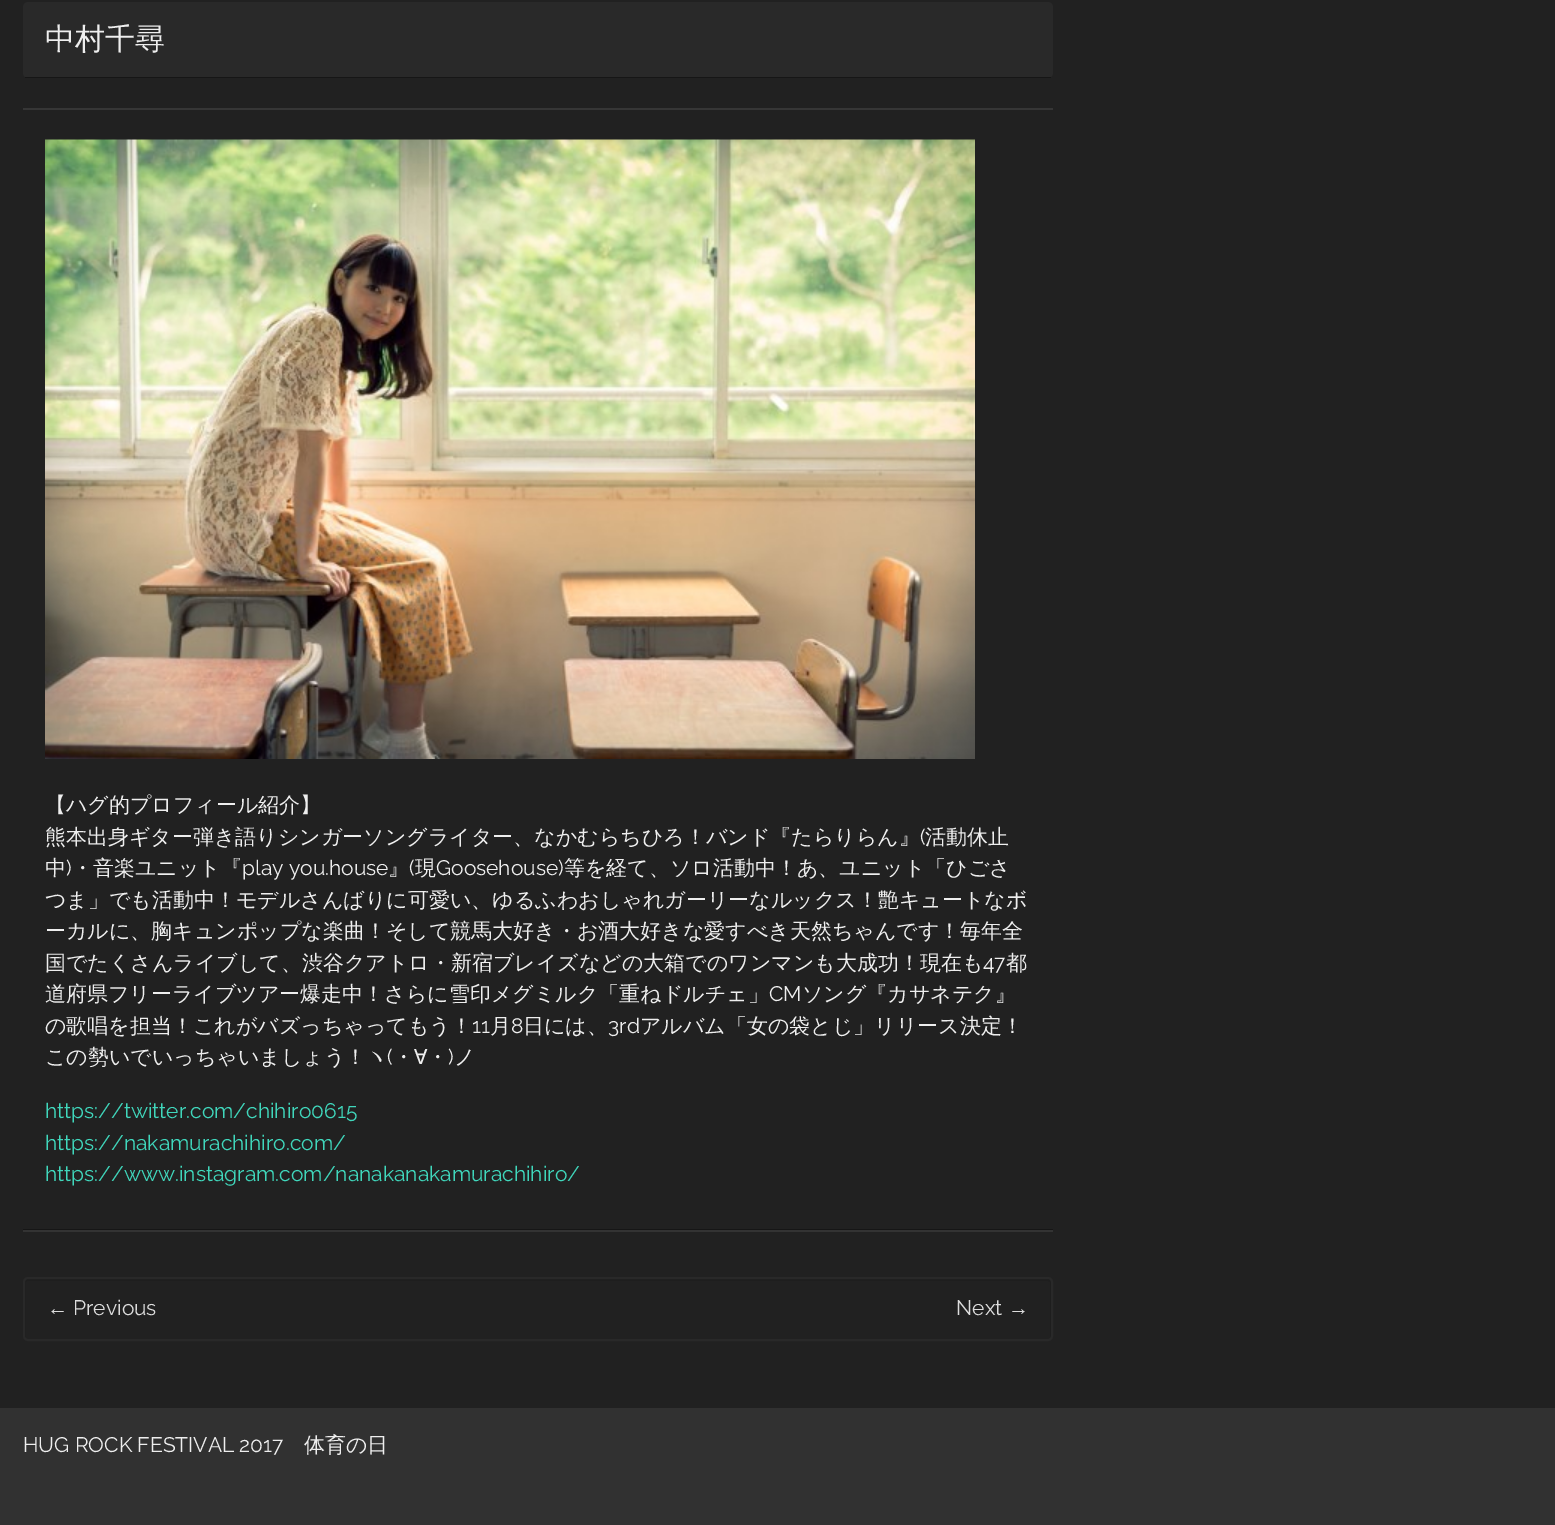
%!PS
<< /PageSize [1555 1525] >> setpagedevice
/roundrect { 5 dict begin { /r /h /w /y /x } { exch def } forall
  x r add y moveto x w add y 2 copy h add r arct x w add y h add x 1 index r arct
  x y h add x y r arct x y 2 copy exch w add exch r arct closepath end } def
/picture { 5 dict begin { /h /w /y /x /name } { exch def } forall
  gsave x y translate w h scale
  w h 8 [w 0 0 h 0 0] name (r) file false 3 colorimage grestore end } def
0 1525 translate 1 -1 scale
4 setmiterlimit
0.129 setgray
0 0 1555 1525 rectfill
0.161 setgray
23 2 1030 76 5 roundrect fill
gsave
23 2 1030 76 5 roundrect clip newpath
0.086 setgray
23 77 1030 1 rectfill
grestore
/WenQuanYiZenHei-Medium [30 0 0 -30 0 0] selectfont
0.933 setgray
45 49 moveto (中村千尋) show
0.212 setgray
23 108 1030 2 rectfill
0.086 setgray
23 1229 1030 1 rectfill
(img1.rgb) 45 139 930 620 picture
/WenQuanYiZenHei-Medium [21 0 0 -21 0 0] selectfont
0.933 setgray
45 812 moveto (【ハグ的プロフィール紹介】) show
45 844 moveto (熊本出身ギター弾き語りシンガーソングライター、なかむらちひろ！バンド『たらりらん』) show
/Raleway-Regular [21 0 0 -21 0 0] selectfont
920 844 moveto (\() show
/WenQuanYiZenHei-Medium [21 0 0 -21 0 0] selectfont
925 844 moveto (活動休止) show
45 875 moveto (中) show
/Raleway-Regular [21 0 0 -21 0 0] selectfont
66 875 moveto (\)) show
/WenQuanYiZenHei-Medium [21 0 0 -21 0 0] selectfont
72 875 moveto (・音楽ユニット『) show
/Raleway-Regular [21 0 0 -21 0 0] selectfont
242 875 moveto (play you.house) show
/WenQuanYiZenHei-Medium [21 0 0 -21 0 0] selectfont
388 875 moveto (』) show
/Raleway-Regular [21 0 0 -21 0 0] selectfont
409 875 moveto (\() show
/WenQuanYiZenHei-Medium [21 0 0 -21 0 0] selectfont
415 875 moveto (現) show
/Raleway-Regular [21 0 0 -21 0 0] selectfont
436 875 moveto (Goosehouse\)) show
/WenQuanYiZenHei-Medium [21 0 0 -21 0 0] selectfont
564 875 moveto (等を経て、ソロ活動中！あ、ユニット「ひごさ) show
45 907 moveto (つま」でも活動中！モデルさんばりに可愛い、ゆるふわおしゃれガーリーなルックス！艶キュートなボ) show
45 938 moveto (ーカルに、胸キュンポップな楽曲！そして競馬大好き・お酒大好きな愛すべき天然ちゃんです！毎年全) show
45 970 moveto (国でたくさんライブして、渋谷クアトロ・新宿ブレイズなどの大箱でのワンマンも大成功！現在も) show
/Raleway-Regular [21 0 0 -21 0 0] selectfont
983 970 moveto (47) show
/WenQuanYiZenHei-Medium [21 0 0 -21 0 0] selectfont
1006 970 moveto (都) show
45 1001 moveto (道府県フリーライブツアー爆走中！さらに雪印メグミルク「重ねドルチェ」) show
/Raleway-Regular [21 0 0 -21 0 0] selectfont
769 1001 moveto (CM) show
/WenQuanYiZenHei-Medium [21 0 0 -21 0 0] selectfont
802 1001 moveto (ソング『カサネテク』) show
45 1033 moveto (の歌唱を担当！これがバズっちゃってもう！) show
/Raleway-Regular [21 0 0 -21 0 0] selectfont
472 1033 moveto (11) show
/WenQuanYiZenHei-Medium [21 0 0 -21 0 0] selectfont
490 1033 moveto (月) show
/Raleway-Regular [21 0 0 -21 0 0] selectfont
511 1033 moveto (8) show
/WenQuanYiZenHei-Medium [21 0 0 -21 0 0] selectfont
523 1033 moveto (日には、) show
/Raleway-Regular [21 0 0 -21 0 0] selectfont
608 1033 moveto (3rd) show
/WenQuanYiZenHei-Medium [21 0 0 -21 0 0] selectfont
640 1033 moveto (アルバム「女の袋とじ」リリース決定！) show
45 1064 moveto (この勢いでいっちゃいましょう！ヽ) show
/Raleway-Regular [21 0 0 -21 0 0] selectfont
387 1064 moveto (\() show
/WenQuanYiZenHei-Medium [21 0 0 -21 0 0] selectfont
393 1064 moveto (・∀・) show
/Raleway-Regular [21 0 0 -21 0 0] selectfont
448 1064 moveto (\)) show
/WenQuanYiZenHei-Medium [21 0 0 -21 0 0] selectfont
454 1064 moveto (ノ) show
/Raleway-Regular [21 0 0 -21 0 0] selectfont
0.251 0.843 0.737 setrgbcolor
45 1118 moveto (https://twitter.com/chihiro0615) show
45 1150 moveto (https://nakamurachihiro.com/) show
45 1181 moveto (https://www.instagram.com/nanakanakamurachihiro/) show
0.2 setgray
23 1230 1030 2 rectfill
0.118 setgray
newpath 27 1281 moveto 1048 1281 lineto 1050 1282 lineto 1050 1338 lineto 1050 1339 1049 1340 1048 1340 curveto 1049 1340 lineto 1051 1340 1052 1339 1052 1337 curveto 1052 1281 lineto 1052 1279 1051 1278 1049 1278 curveto 27 1278 lineto 25 1278 24 1279 24 1281 curveto 24 1337 lineto 24 1339 25 1340 27 1340 curveto 26 1340 26 1339 26 1338 curveto 26 1282 lineto closepath fill
0.161 setgray
2 setlinewidth
24 1278 1028 62 4 roundrect stroke
/LiberationSans-Regular [21 0 0 -21 0 0] selectfont
0.867 setgray
47 1315 moveto (←) show
/Raleway-Regular [21 0 0 -21 0 0] selectfont
73 1315 moveto (Previous) show
956 1315 moveto (Next) show
/LiberationSans-Regular [21 0 0 -21 0 0] selectfont
1008 1315 moveto (→) show
0.192 setgray
0 1408 1555 117 rectfill
/Raleway-Regular [21 0 0 -21 0 0] selectfont
0.933 setgray
23 1452 moveto (HUG ROCK FESTIVAL 2017) show
/WenQuanYiZenHei-Medium [21 0 0 -21 0 0] selectfont
304 1452 moveto (体育の日) show
showpage
